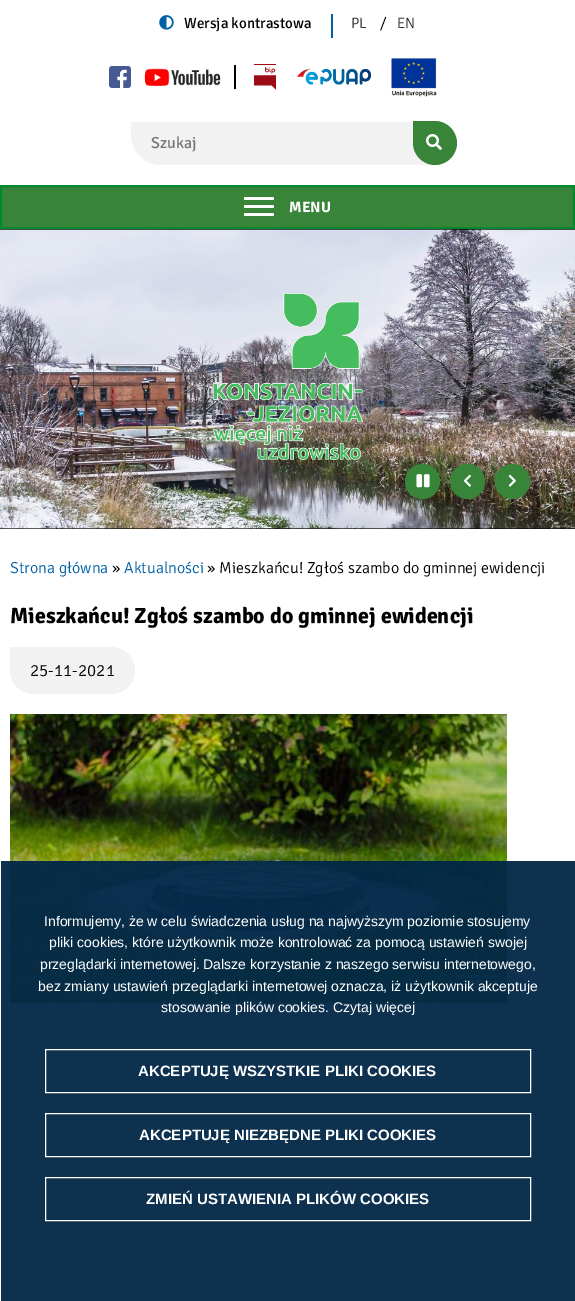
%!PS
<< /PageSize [575 1301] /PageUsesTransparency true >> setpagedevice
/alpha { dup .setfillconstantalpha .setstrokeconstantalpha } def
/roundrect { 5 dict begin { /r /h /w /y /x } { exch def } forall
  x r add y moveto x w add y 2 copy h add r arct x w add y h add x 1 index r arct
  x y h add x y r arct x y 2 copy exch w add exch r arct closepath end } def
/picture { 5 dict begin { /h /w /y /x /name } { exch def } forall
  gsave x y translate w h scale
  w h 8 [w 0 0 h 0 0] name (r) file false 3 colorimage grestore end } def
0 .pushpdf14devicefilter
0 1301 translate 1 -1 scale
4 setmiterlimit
1 setgray
0 0 575 1301 rectfill
(img1.rgb) 159 15 15 15 picture
/Signika-Regular [15 0 0 -15 0 0] selectfont
0 setgray
184 28 moveto (Wersja kontrastowa) show
0 0.376 0.647 setrgbcolor
331 14 2 24 rectfill
/Signika-Light [15 0 0 -15 0 0] selectfont
0.192 setgray
351 28 moveto (PL) show
/Signika-Light [16 0 0 -16 0 0] selectfont
0 setgray
380 28 moveto (/) show
/Signika-Light [15 0 0 -15 0 0] selectfont
0.192 setgray
397 28 moveto (EN) show
(img2.rgb) 109 66 22 22 picture
(img3.rgb) 144 68 77 18 picture
0 setgray
234 65 2 24 rectfill
(img4.rgb) 254 64 22 26 picture
(img5.rgb) 297 69 74 16 picture
(img6.rgb) 391 57 46 40 picture
0.949 setgray
newpath 131 122 moveto 440 122 lineto 440 165 lineto 161 165 lineto 144.5 165 131 151.5 131 135 curveto closepath fill
/Signika-Regular [16 0 0 -16 0 0] selectfont
0.459 setgray
151 148 moveto (Szukaj) show
0.22 0.522 0.224 setrgbcolor
newpath 413 121 moveto 435 121 lineto 447 121 457 131 457 143 curveto 457 155 447 165 435 165 curveto 423 165 413 155 413 143 curveto closepath fill
(img7.rgb) 426 134 16 16 picture
newpath 1 186 moveto 574 186 lineto 574 228 lineto 1 228 lineto closepath gsave fill grestore
0.008 0.533 0.184 setrgbcolor
2 setlinewidth
stroke
1 setgray
244 197 30 3 1.5 roundrect fill
244 205 30 3 1.5 roundrect fill
244 213 30 3 1.5 roundrect fill
/Signika-Bold [15 0 0 -15 0 0] selectfont
289 212 moveto (MENU) show
(img8.rgb) 0 229 575 300 picture
0.22 0.522 0.224 setrgbcolor
newpath 422.5 481.5 17.5 0 360 arc closepath fill
(img9.rgb) 416 474 14 14 picture
newpath 467.5 481.5 17.5 0 360 arc closepath fill
(img10.rgb) 463 474 8 13 picture
newpath 512.5 481.5 17.5 0 360 arc closepath fill
(img11.rgb) 508 474 8 13 picture
(img12.rgb) 213 293 150 168 picture
/Signika-Light [16 0 0 -16 0 0] selectfont
0 0.376 0.647 setrgbcolor
10 573 moveto (Strona główna) show
0 setgray
112 573 moveto (») show
0 0.376 0.647 setrgbcolor
124 573 moveto (Aktualności) show
0 setgray
207 573 moveto (» Mieszkańcu! Zgłoś szambo do gminnej ewidencji) show
/Signika-Bold [22 0 0 -22 0 0] selectfont
10 623 moveto (Mieszkańcu! Zgłoś szambo do gminnej ewidencji) show
0.949 setgray
newpath 10 647 moveto 111.5 647 lineto 124.5 647 135 657.5 135 670.5 curveto 135 683.5 124.5 694 111.5 694 curveto 33.5 694 lineto 20.5 694 10 683.5 10 670.5 curveto closepath fill
/Signika-Light [17 0 0 -17 0 0] selectfont
0 setgray
30 676 moveto (25-11-2021) show
(img13.rgb) 10 714 497 289 picture
0.95 alpha
0 0.149 0.275 setrgbcolor
1 861 574 440 rectfill
/LiberationSans-Regular [14 0 0 -14 0 0] selectfont
1 alpha
1 setgray
44 926 moveto (Informujemy, że w celu świadczenia usług na najwyższym poziomie stosujemy) show
49 947 moveto (pliki cookies, które użytkownik może kontrolować za pomocą ustawień swojej) show
40 969 moveto (przeglądarki internetowej. Dalsze korzystanie z naszego serwisu internetowego,) show
38 991 moveto (bez zmiany ustawień przeglądarki internetowej oznacza, iż użytkownik akceptuje) show
161 1012 moveto (stosowanie plików cookies. Czytaj więcej) show
1 setlinewidth
45.5 1049.5 485 43 rectstroke
/LiberationSans-Bold [15 0 0 -15 0 0] selectfont
138 1076 moveto (AKCEPTUJĘ WSZYSTKIE PLIKI COOKIES) show
45.5 1113.5 485 43 rectstroke
139 1140 moveto (AKCEPTUJĘ NIEZBĘDNE PLIKI COOKIES) show
45.5 1177.5 485 43 rectstroke
146 1204 moveto (ZMIEŃ USTAWIENIA PLIKÓW COOKIES) show
.poppdf14devicefilter showpage
